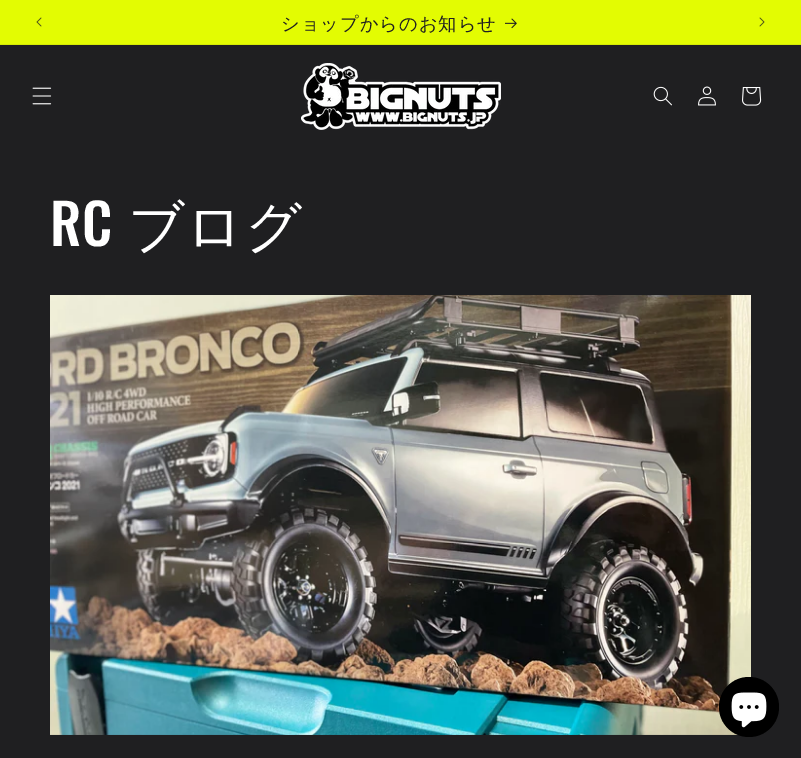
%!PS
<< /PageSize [801 758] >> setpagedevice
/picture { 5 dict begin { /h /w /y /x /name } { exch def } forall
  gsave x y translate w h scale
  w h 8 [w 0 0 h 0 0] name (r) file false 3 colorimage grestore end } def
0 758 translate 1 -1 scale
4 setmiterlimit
0.122 0.122 0.129 setrgbcolor
0 0 801 758 rectfill
0.89 0.988 0.008 setrgbcolor
0 0 801 44 rectfill
0.827 0.918 0.016 setrgbcolor
0 44 801 1 rectfill
(img1.rgb) 36 17 6 10 picture
/WenQuanYiZenHei-Medium [18.25 0 0 -18.25 0 0] selectfont
0.122 0.122 0.129 setrgbcolor
281 30 moveto 1 0 (ショップからのお知らせ) ashow
(img2.rgb) 505 18 12 11 picture
(img3.rgb) 759 17 6 10 picture
(img4.rgb) 32 87 20 18 picture
(img5.rgb) 301 63 200 67 picture
(img6.rgb) 653 86 19 20 picture
(img7.rgb) 698 86 18 20 picture
(img8.rgb) 742 87 20 19 picture
/Oswald-Medium [56 0 0 -56 0 0] selectfont
1 setgray
50 246 moveto 1 0 (RC) ashow
/WenQuanYiZenHei-Medium [56 0 0 -56 0 0] selectfont
128 246 moveto 1 0 (ブログ) ashow
(img9.rgb) 50 295 701 440 picture
0 setgray
newpath 749 707 30 0 360 arc closepath fill
(img10.rgb) 731 692 36 36 picture
showpage
